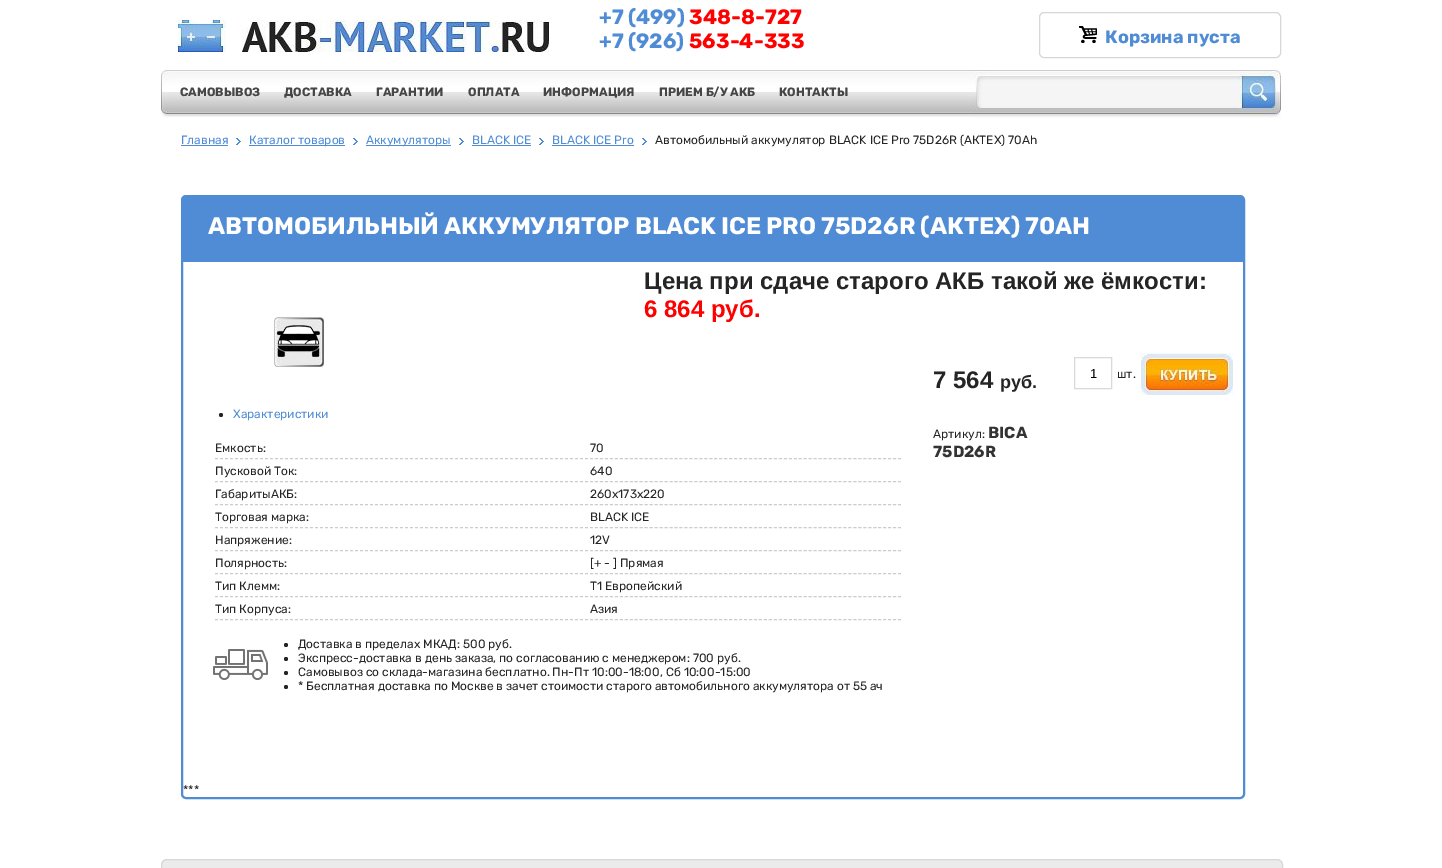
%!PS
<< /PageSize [1442 868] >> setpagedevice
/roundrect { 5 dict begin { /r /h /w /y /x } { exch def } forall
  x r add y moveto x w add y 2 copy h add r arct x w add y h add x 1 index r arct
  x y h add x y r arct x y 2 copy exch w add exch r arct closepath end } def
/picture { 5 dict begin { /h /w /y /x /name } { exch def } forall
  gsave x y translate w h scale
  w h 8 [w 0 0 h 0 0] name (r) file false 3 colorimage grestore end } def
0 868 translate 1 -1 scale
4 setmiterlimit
1 setgray
0 0 1442 868 rectfill
(img1.rgb) 178 20 371 32 picture
/Rubik-Bold [20.75 0 0 -20.75 0 0] selectfont
0.31 0.549 0.835 setrgbcolor
599 24 moveto (+7 \(499\)) show
1 0 0 setrgbcolor
689 24 moveto (348-8-727) show
0.31 0.549 0.835 setrgbcolor
599 48 moveto (+7 \(926\)) show
1 0 0 setrgbcolor
689 48 moveto (563-4-333) show
0.843 setgray
1039.5 12.5 241 45 4.5 roundrect stroke
(img2.rgb) 1079 26 18 17 picture
/Rubik-Bold [18 0 0 -18 0 0] selectfont
0.31 0.549 0.835 setrgbcolor
1105 43 moveto (Корзина пуста) show
(img3.rgb) 169 70 804 47 picture
(img4.rgb) 161 70 8 48 picture
/Rubik-Bold [12 0 0 -12 0 0] selectfont
0.275 setgray
180 96 moveto (САМОВЫВОЗ) show
284 96 moveto (ДОСТАВКА) show
376 96 moveto (ГАРАНТИИ) show
468 96 moveto (ОПЛАТА) show
543 96 moveto (ИНФОРМАЦИЯ) show
659 96 moveto (ПРИЕМ Б/У АКБ) show
779 96 moveto (КОНТАКТЫ) show
(img5.rgb) 973 70 308 48 picture
/Rubik-Regular [12 0 0 -12 0 0] selectfont
0.31 0.549 0.835 setrgbcolor
181 144 moveto (Главная) show
181 145 47 1 rectfill
(img6.rgb) 236 138 5 7 picture
249 145 96 1 rectfill
249 144 moveto (Каталог товаров) show
(img6.rgb) 353 138 5 7 picture
366 145 85 1 rectfill
366 144 moveto (Аккумуляторы) show
(img6.rgb) 459 138 5 7 picture
472 144 moveto (BLACK ICE) show
472 145 59 1 rectfill
(img6.rgb) 539 138 5 7 picture
552 144 moveto (BLACK ICE Pro) show
552 145 82 1 rectfill
(img6.rgb) 642 138 5 7 picture
0.145 setgray
655 144 moveto (Автомобильный аккумулятор BLACK ICE Pro 75D26R \(АКТЕХ\) 70Ah) show
0.31 0.549 0.835 setrgbcolor
2 setlinewidth
182 196 1062 602 4 roundrect stroke
183 197 1060 65 rectfill
/Rubik-Bold [24 0 0 -24 0 0] selectfont
1 setgray
208 234 moveto (АВТОМОБИЛЬНЫЙ АККУМУЛЯТОР BLACK ICE PRO 75D26R \(АКТЕХ\) 70AH) show
/LiberationSans-Bold [24 0 0 -24 0 0] selectfont
0.145 setgray
644 289 moveto (Цена при сдаче старого АКБ такой же ёмкости:) show
1 0 0 setrgbcolor
644 317 moveto (6 864 руб.) show
(img7.rgb) 274 317 50 50 picture
0.145 setgray
newpath 221 415 2 0 360 arc closepath fill
/Rubik-Regular [12 0 0 -12 0 0] selectfont
0.31 0.549 0.835 setrgbcolor
233 418 moveto (Характеристики) show
0.8 setgray
1 setlinewidth
[3 2] 0 setdash
newpath 215 458.5 moveto 588 458.5 lineto stroke
0.145 setgray
215 452 moveto (Емкость:) show
0.8 setgray
[3 1.97] 0 setdash
newpath 590 458.5 moveto 901 458.5 lineto stroke
0.145 setgray
590 452 moveto (70) show
0.8 setgray
[3 2] 0 setdash
newpath 215 481.5 moveto 588 481.5 lineto stroke
0.145 setgray
215 475 moveto (Пусковой Ток:) show
0.8 setgray
[3 1.97] 0 setdash
newpath 590 481.5 moveto 901 481.5 lineto stroke
0.145 setgray
590 475 moveto (640) show
0.8 setgray
[3 2] 0 setdash
newpath 215 504.5 moveto 588 504.5 lineto stroke
0.145 setgray
215 498 moveto (ГабаритыАКБ:) show
0.8 setgray
[3 1.97] 0 setdash
newpath 590 504.5 moveto 901 504.5 lineto stroke
0.145 setgray
590 498 moveto (260х173х220) show
0.8 setgray
[3 2] 0 setdash
newpath 215 527.5 moveto 588 527.5 lineto stroke
0.145 setgray
215 521 moveto (Торговая марка:) show
0.8 setgray
[3 1.97] 0 setdash
newpath 590 527.5 moveto 901 527.5 lineto stroke
0.145 setgray
590 521 moveto (BLACK ICE) show
0.8 setgray
[3 2] 0 setdash
newpath 215 550.5 moveto 588 550.5 lineto stroke
0.145 setgray
215 544 moveto (Напряжение:) show
0.8 setgray
[3 1.97] 0 setdash
newpath 590 550.5 moveto 901 550.5 lineto stroke
0.145 setgray
590 544 moveto (12V) show
0.8 setgray
[3 2] 0 setdash
newpath 215 573.5 moveto 588 573.5 lineto stroke
0.145 setgray
215 567 moveto (Полярность:) show
0.8 setgray
[3 1.97] 0 setdash
newpath 590 573.5 moveto 901 573.5 lineto stroke
0.145 setgray
590 567 moveto ([+ - ] Прямая) show
0.8 setgray
[3 2] 0 setdash
newpath 215 596.5 moveto 588 596.5 lineto stroke
0.145 setgray
215 590 moveto (Тип Клемм:) show
0.8 setgray
[3 1.97] 0 setdash
newpath 590 596.5 moveto 901 596.5 lineto stroke
0.145 setgray
590 590 moveto (T1 Европейский) show
0.8 setgray
[3 2] 0 setdash
newpath 215 619.5 moveto 588 619.5 lineto stroke
0.145 setgray
215 613 moveto (Тип Корпуса:) show
0.8 setgray
[3 1.97] 0 setdash
newpath 590 619.5 moveto 901 619.5 lineto stroke
0.145 setgray
590 613 moveto (Азия) show
(img8.rgb) 213 649 55 31 picture
newpath 286 645 2 0 360 arc closepath fill
298 648 moveto (Доставка в пределах МКАД: 500 руб.) show
newpath 286 659 2 0 360 arc closepath fill
298 662 moveto (Экспресс-доставка в день заказа, по согласованию с менеджером: 700 руб.) show
newpath 286 673 2 0 360 arc closepath fill
298 676 moveto (Самовывоз со склада-магазина бесплатно. Пн-Пт 10:00-18:00, Сб 10:00-15:00) show
newpath 286 687 2 0 360 arc closepath fill
298 690 moveto (* Бесплатная доставка по Москве в зачет стоимости старого автомобильного аккумулятора от 55 ач) show
/LiberationSans-Bold [24 0 0 -24 0 0] selectfont
933 388 moveto (7 564) show
/LiberationSans-Bold [18 0 0 -18 0 0] selectfont
1000 388 moveto (руб.) show
0.851 setgray
[] 0 setdash
1074.5 357.5 37 31 rectstroke
/LiberationSans-Regular [13 0 0 -13 0 0] selectfont
0 setgray
1090 378 moveto (1) show
/Rubik-Regular [12 0 0 -12 0 0] selectfont
0.145 setgray
1117 378 moveto (шт.) show
(img9.rgb) 1141 353 92 42 picture
933 438 moveto (Артикул:) show
/Rubik-Bold [16 0 0 -16 0 0] selectfont
0.2 setgray
988 438 moveto (BICA) show
933 457 moveto (75D26R) show
/Rubik-Regular [12 0 0 -12 0 0] selectfont
0.145 setgray
183 794 moveto (***) show
0.922 setgray
161.5 859.5 1121 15 5.5 roundrect gsave fill grestore
0.843 setgray
stroke
showpage
